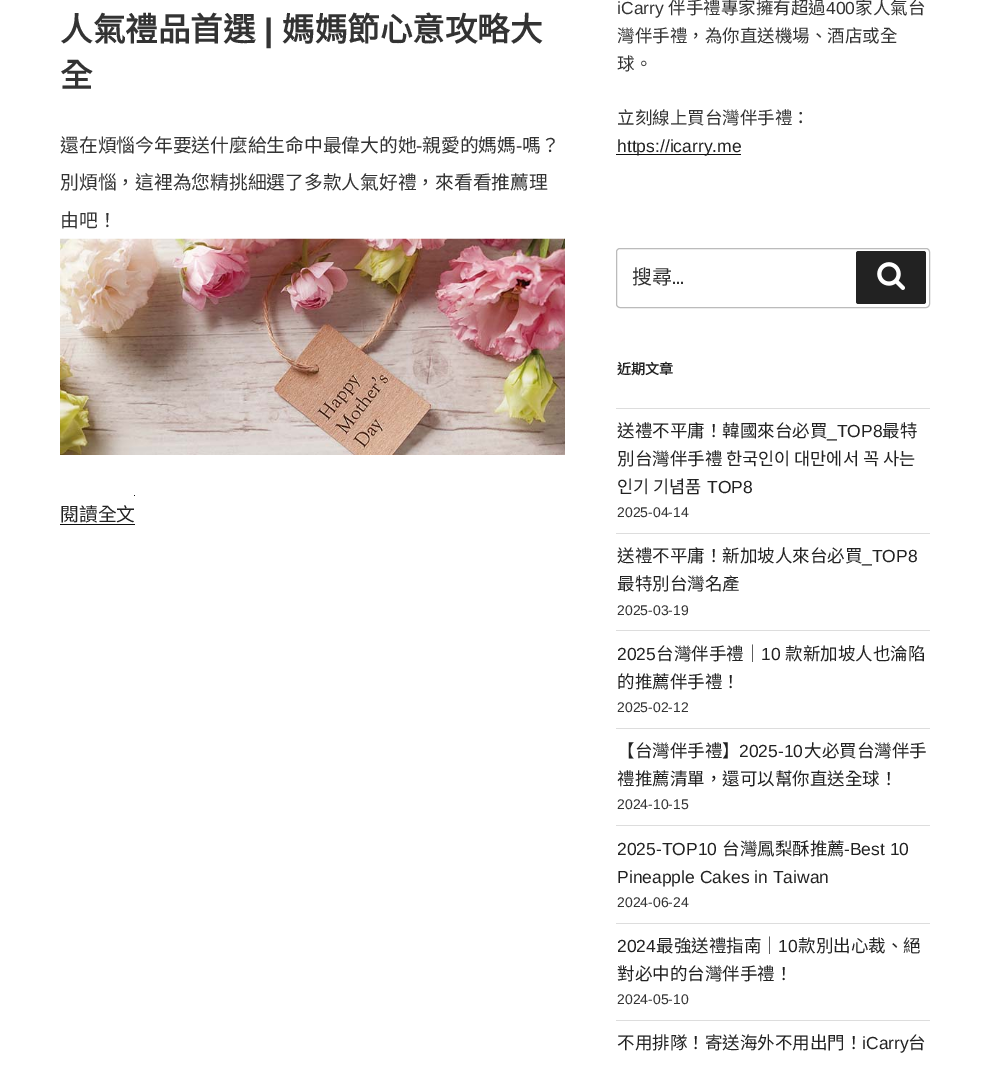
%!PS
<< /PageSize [990 1066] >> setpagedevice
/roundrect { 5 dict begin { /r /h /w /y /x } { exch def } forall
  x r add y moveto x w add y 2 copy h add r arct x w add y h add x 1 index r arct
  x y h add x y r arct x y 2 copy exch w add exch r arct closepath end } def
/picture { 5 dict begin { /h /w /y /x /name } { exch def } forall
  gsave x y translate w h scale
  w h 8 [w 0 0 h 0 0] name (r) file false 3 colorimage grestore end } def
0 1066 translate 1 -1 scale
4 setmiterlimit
1 setgray
0 0 990 1066 rectfill
/NotoSansCJKTC-Bold [32.5 0 0 -32.5 0 0] selectfont
0.2 setgray
60 41 moveto (人氣禮品首選) show
/LiberationSans-Bold [32.5 0 0 -32.5 0 0] selectfont
264 41 moveto (|) show
/NotoSansCJKTC-Bold [32.5 0 0 -32.5 0 0] selectfont
282 41 moveto (媽媽節心意攻略大) show
60 87 moveto (全) show
/NotoSansCJKTC-Regular [18.75 0 0 -18.75 0 0] selectfont
60 152 moveto (還在煩惱今年要送什麼給生命中最偉大的她) show
/LiberationSans-Regular [18.75 0 0 -18.75 0 0] selectfont
416 152 moveto (-) show
/NotoSansCJKTC-Regular [18.75 0 0 -18.75 0 0] selectfont
422 152 moveto (親愛的媽媽) show
/LiberationSans-Regular [18.75 0 0 -18.75 0 0] selectfont
516 152 moveto (-) show
/NotoSansCJKTC-Regular [18.75 0 0 -18.75 0 0] selectfont
522 152 moveto (嗎？) show
60 189 moveto (別煩惱，這裡為您精挑細選了多款人氣好禮，來看看推薦理) show
60 227 moveto (由吧！) show
(img1.rgb) 60 238 505 217 picture
0.133 setgray
60 521 moveto (閱讀全文) show
0.059 setgray
60 524 75 1 rectfill
134 495 1 1 rectfill
/LiberationSans-Regular [17.5 0 0 -17.5 0 0] selectfont
0.2 setgray
617 14 moveto (iCarry) show
/NotoSansCJKTC-Regular [17.5 0 0 -17.5 0 0] selectfont
668 14 moveto (伴手禮專家擁有超過) show
/LiberationSans-Regular [17.5 0 0 -17.5 0 0] selectfont
826 14 moveto (400) show
/NotoSansCJKTC-Regular [17.5 0 0 -17.5 0 0] selectfont
855 14 moveto (家人氣台) show
617 42 moveto (灣伴手禮，為你直送機場、酒店或全) show
617 70 moveto (球。) show
617 124 moveto (立刻線上買台灣伴手禮：) show
0.059 setgray
616 154 125 1 rectfill
/LiberationSans-Regular [17.5 0 0 -17.5 0 0] selectfont
0.133 setgray
617 152 moveto (https://icarry.me) show
0.733 setgray
616.5 248.5 313 59 3.5 roundrect stroke
/NotoSansCJKTC-Regular [20 0 0 -20 0 0] selectfont
0.2 setgray
632 284 moveto (搜尋) show
/LibreFranklin-Thin [20 0 0 -20 0 0] selectfont
672 284 moveto (...) show
0.133 setgray
856 251 70 53 2.5 roundrect fill
(img2.rgb) 877 262 28 28 picture
/NotoSansCJKTC-Bold [14 0 0 -14 0 0] selectfont
617 374 moveto (近期文章) show
0.867 setgray
616 408 314 1 rectfill
616 533 314 1 rectfill
/NotoSansCJKTC-Regular [17.5 0 0 -17.5 0 0] selectfont
0.133 setgray
617 437 moveto (送禮不平庸！韓國來台必買) show
/LiberationSans-Regular [17.5 0 0 -17.5 0 0] selectfont
827 437 moveto (_TOP8) show
/NotoSansCJKTC-Regular [17.5 0 0 -17.5 0 0] selectfont
882 437 moveto (最特) show
617 465 moveto (別台灣伴手禮 한국인이 대만에서 꼭 사는) show
617 493 moveto (인기 기념품) show
/LiberationSans-Regular [17.5 0 0 -17.5 0 0] selectfont
707 493 moveto (TOP8) show
/LiberationSans-Regular [14 0 0 -14 0 0] selectfont
0.2 setgray
617 517 moveto (2025-04-14) show
0.867 setgray
616 630 314 1 rectfill
/NotoSansCJKTC-Regular [17.5 0 0 -17.5 0 0] selectfont
0.133 setgray
617 562 moveto (送禮不平庸！新加坡人來台必買) show
/LiberationSans-Regular [17.5 0 0 -17.5 0 0] selectfont
862 562 moveto (_TOP8) show
/NotoSansCJKTC-Regular [17.5 0 0 -17.5 0 0] selectfont
617 590 moveto (最特別台灣名產) show
/LiberationSans-Regular [14 0 0 -14 0 0] selectfont
0.2 setgray
617 615 moveto (2025-03-19) show
0.867 setgray
616 728 314 1 rectfill
/LiberationSans-Regular [17.5 0 0 -17.5 0 0] selectfont
0.133 setgray
617 660 moveto (2025) show
/NotoSansCJKTC-Regular [17.5 0 0 -17.5 0 0] selectfont
656 660 moveto (台灣伴手禮｜) show
/LiberationSans-Regular [17.5 0 0 -17.5 0 0] selectfont
761 660 moveto (10) show
/NotoSansCJKTC-Regular [17.5 0 0 -17.5 0 0] selectfont
785 660 moveto (款新加坡人也淪陷) show
617 688 moveto (的推薦伴手禮！) show
/LiberationSans-Regular [14 0 0 -14 0 0] selectfont
0.2 setgray
617 712 moveto (2025-02-12) show
0.867 setgray
616 825 314 1 rectfill
/NotoSansCJKTC-Regular [17.5 0 0 -17.5 0 0] selectfont
0.133 setgray
617 757 moveto (【台灣伴手禮】) show
/LiberationSans-Regular [17.5 0 0 -17.5 0 0] selectfont
739 757 moveto (2025-10) show
/NotoSansCJKTC-Regular [17.5 0 0 -17.5 0 0] selectfont
804 757 moveto (大必買台灣伴手) show
617 785 moveto (禮推薦清單，還可以幫你直送全球！) show
/LiberationSans-Regular [14 0 0 -14 0 0] selectfont
0.2 setgray
617 809 moveto (2024-10-15) show
0.867 setgray
616 923 314 1 rectfill
/LiberationSans-Regular [17.5 0 0 -17.5 0 0] selectfont
0.133 setgray
617 855 moveto (2025-TOP10) show
/NotoSansCJKTC-Regular [17.5 0 0 -17.5 0 0] selectfont
722 855 moveto (台灣鳳梨酥推薦) show
/LiberationSans-Regular [17.5 0 0 -17.5 0 0] selectfont
844 855 moveto (-Best 10) show
617 883 moveto (Pineapple Cakes in Taiwan) show
/LiberationSans-Regular [14 0 0 -14 0 0] selectfont
0.2 setgray
617 907 moveto (2024-06-24) show
0.867 setgray
616 1020 314 1 rectfill
/LiberationSans-Regular [17.5 0 0 -17.5 0 0] selectfont
0.133 setgray
617 952 moveto (2024) show
/NotoSansCJKTC-Regular [17.5 0 0 -17.5 0 0] selectfont
656 952 moveto (最強送禮指南｜) show
/LiberationSans-Regular [17.5 0 0 -17.5 0 0] selectfont
778 952 moveto (10) show
/NotoSansCJKTC-Regular [17.5 0 0 -17.5 0 0] selectfont
798 952 moveto (款別出心裁、絕) show
617 980 moveto (對必中的台灣伴手禮！) show
/LiberationSans-Regular [14 0 0 -14 0 0] selectfont
0.2 setgray
617 1004 moveto (2024-05-10) show
/NotoSansCJKTC-Regular [17.5 0 0 -17.5 0 0] selectfont
0.133 setgray
617 1049 moveto (不用排隊！寄送海外不用出門！) show
/LiberationSans-Regular [17.5 0 0 -17.5 0 0] selectfont
862 1049 moveto (iCarry) show
/NotoSansCJKTC-Regular [17.5 0 0 -17.5 0 0] selectfont
908 1049 moveto (台) show
showpage
